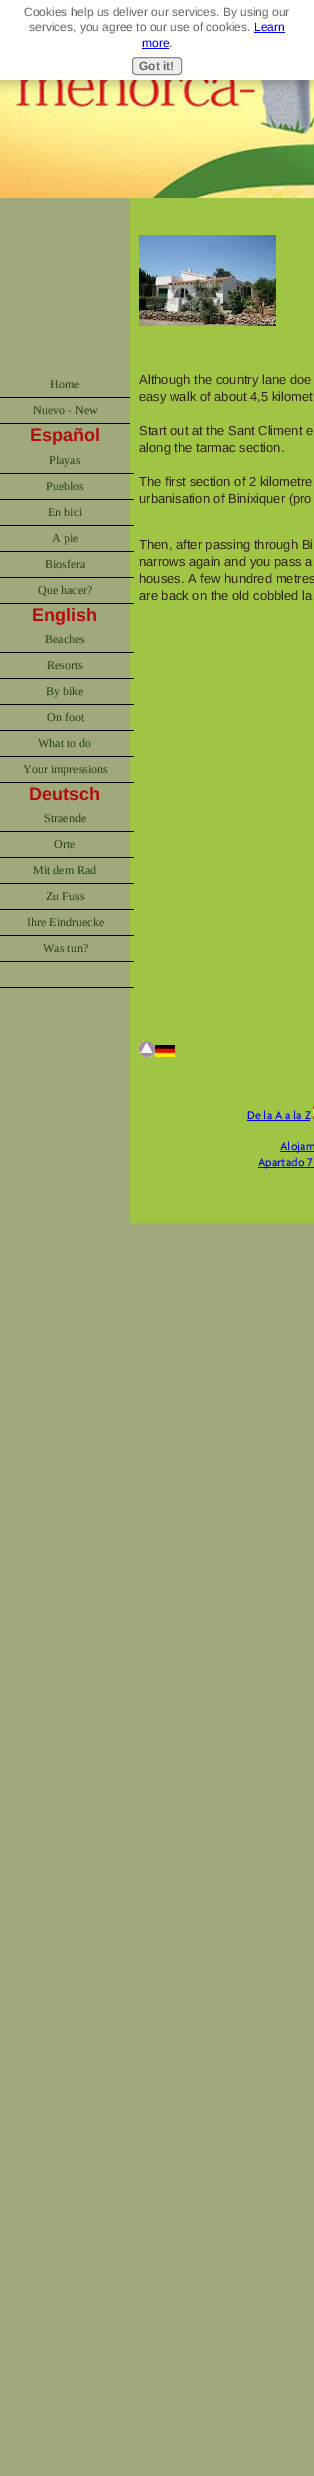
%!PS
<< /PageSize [314 2476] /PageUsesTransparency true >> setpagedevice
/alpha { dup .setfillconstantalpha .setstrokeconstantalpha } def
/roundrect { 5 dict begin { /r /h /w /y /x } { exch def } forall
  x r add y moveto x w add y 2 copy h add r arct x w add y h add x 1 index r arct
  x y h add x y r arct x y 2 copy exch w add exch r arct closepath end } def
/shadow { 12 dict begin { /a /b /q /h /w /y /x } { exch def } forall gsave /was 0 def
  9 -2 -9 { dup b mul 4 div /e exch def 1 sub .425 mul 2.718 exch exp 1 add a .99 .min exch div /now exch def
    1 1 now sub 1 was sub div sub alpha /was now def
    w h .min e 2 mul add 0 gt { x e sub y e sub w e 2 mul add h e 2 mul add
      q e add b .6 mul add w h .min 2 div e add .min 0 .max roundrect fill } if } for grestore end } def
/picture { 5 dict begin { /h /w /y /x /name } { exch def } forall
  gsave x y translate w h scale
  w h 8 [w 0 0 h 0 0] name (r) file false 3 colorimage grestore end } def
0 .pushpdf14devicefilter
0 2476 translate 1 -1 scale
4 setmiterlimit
0.624 0.663 0.482 setrgbcolor
0 0 314 2476 rectfill
(img1.rgb) 0 80 314 118 picture
0 setgray
-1 3 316 82 0 5 0.2 shadow
1 setgray
0 0 314 80 rectfill
/LiberationSans-Regular [12 0 0 -12 0 0] selectfont
0.4 setgray
24 16 moveto (Cookies help us deliver our services. By using our) show
29 31 moveto (services, you agree to our use of cookies.) show
0 0 1 setrgbcolor
254 31 moveto (Learn) show
254 32 31 1 rectfill
142 47 moveto (more) show
142 48 27 1 rectfill
0.4 setgray
169 47 moveto (.) show
0.933 setgray
132.5 57.5 49 17 3.5 roundrect gsave fill grestore
0.533 setgray
stroke
/LiberationSans-Bold [12 0 0 -12 0 0] selectfont
0.4 setgray
139 70 moveto (Got it!) show
0 setgray
0 397 130 1 rectfill
/LiberationSerif-Regular [12 0 0 -12 0 0] selectfont
0.145 0.255 0.09 setrgbcolor
50 388 moveto (Home) show
0 setgray
0 423 130 1 rectfill
0.145 0.255 0.09 setrgbcolor
33 414 moveto (Nuevo - New) show
/LiberationSans-Bold [18 0 0 -18 0 0] selectfont
0.71 0.043 0.043 setrgbcolor
30 441 moveto (Español) show
0.627 0.773 0.267 setrgbcolor
130 198 184 1025 rectfill
0 setgray
0 473 134 1 rectfill
/LiberationSerif-Regular [12 0 0 -12 0 0] selectfont
0.145 0.255 0.09 setrgbcolor
49 464 moveto (Playas) show
0 setgray
0 499 134 1 rectfill
0.145 0.255 0.09 setrgbcolor
46 490 moveto (Pueblos) show
0 setgray
0 525 134 1 rectfill
0.145 0.255 0.09 setrgbcolor
48 516 moveto (En bici) show
0 setgray
0 551 134 1 rectfill
0.145 0.255 0.09 setrgbcolor
52 542 moveto (A pie) show
0 setgray
0 577 134 1 rectfill
0.145 0.255 0.09 setrgbcolor
45 568 moveto (Biosfera) show
0 setgray
0 603 134 1 rectfill
0.145 0.255 0.09 setrgbcolor
38 594 moveto (Que hacer?) show
/LiberationSans-Bold [18 0 0 -18 0 0] selectfont
0.71 0.043 0.043 setrgbcolor
32 621 moveto (English) show
0 setgray
0 652 134 1 rectfill
/LiberationSerif-Regular [12 0 0 -12 0 0] selectfont
0.145 0.255 0.09 setrgbcolor
45 643 moveto (Beaches) show
0 setgray
0 678 134 1 rectfill
0.145 0.255 0.09 setrgbcolor
47 669 moveto (Resorts) show
0 setgray
0 704 134 1 rectfill
0.145 0.255 0.09 setrgbcolor
46 695 moveto (By bike) show
0 setgray
0 730 134 1 rectfill
0.145 0.255 0.09 setrgbcolor
47 721 moveto (On foot) show
0 setgray
0 756 134 1 rectfill
0.145 0.255 0.09 setrgbcolor
38 747 moveto (What to do) show
0 setgray
0 782 134 1 rectfill
0.145 0.255 0.09 setrgbcolor
23 773 moveto (Your impressions) show
/LiberationSans-Bold [18 0 0 -18 0 0] selectfont
0.71 0.043 0.043 setrgbcolor
29 800 moveto (Deutsch) show
0 setgray
0 831 134 1 rectfill
/LiberationSerif-Regular [12 0 0 -12 0 0] selectfont
0.145 0.255 0.09 setrgbcolor
44 822 moveto (Straende) show
0 setgray
0 857 134 1 rectfill
0.145 0.255 0.09 setrgbcolor
54 848 moveto (Orte) show
0 setgray
0 883 134 1 rectfill
0.145 0.255 0.09 setrgbcolor
33 874 moveto (Mit dem Rad) show
0 setgray
0 909 134 1 rectfill
0.145 0.255 0.09 setrgbcolor
46 900 moveto (Zu Fuss) show
0 setgray
0 935 134 1 rectfill
0.145 0.255 0.09 setrgbcolor
27 926 moveto (Ihre Eindruecke) show
0 setgray
0 961 134 1 rectfill
0.145 0.255 0.09 setrgbcolor
43 952 moveto (Was tun?) show
0 setgray
0 987 134 1 rectfill
(img2.rgb) 139 235 137 91 picture
/LiberationSans-Regular [13 0 0 -13 0 0] selectfont
0.188 0.133 0.09 setrgbcolor
139 384 moveto (Although the country lane doe) show
139 401 moveto (easy walk of about 4,5 kilomet) show
139 435 moveto (Start out at the Sant Climent e) show
139 452 moveto (along the tarmac section.) show
139 486 moveto (The first section of 2 kilometre) show
139 503 moveto (urbanisation of Binixiquer \(pro) show
139 549 moveto (Then, after passing through Bi) show
139 566 moveto (narrows again and you pass a) show
139 583 moveto (houses. A few hundred metres) show
139 600 moveto (are back on the old cobbled la) show
(img3.rgb) 139 1041 16 16 picture
(img4.rgb) 155 1045 20 12 picture
/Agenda-Regular [12 0 0 -12 0 0] selectfont
0 0 0.933 setrgbcolor
247 1119 moveto (De la A a la Z) show
247 1120 63 1 rectfill
(img5.rgb) 313 1106 1 13 picture
280 1151 34 1 rectfill
280 1150 moveto (Alojam) show
258 1167 56 1 rectfill
258 1166 moveto (Apartado 7) show
.poppdf14devicefilter showpage
